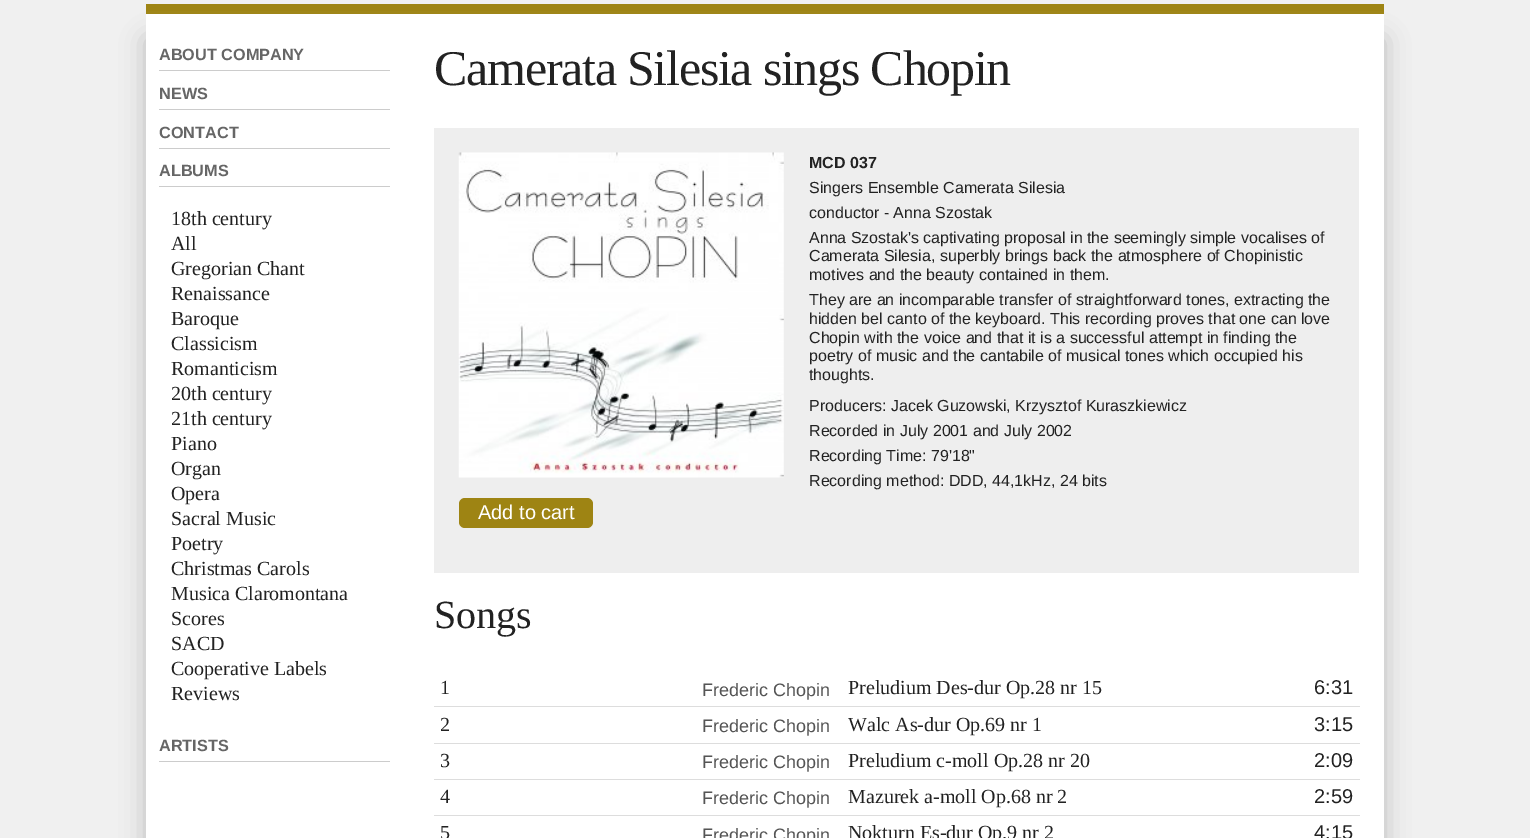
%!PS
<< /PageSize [1530 838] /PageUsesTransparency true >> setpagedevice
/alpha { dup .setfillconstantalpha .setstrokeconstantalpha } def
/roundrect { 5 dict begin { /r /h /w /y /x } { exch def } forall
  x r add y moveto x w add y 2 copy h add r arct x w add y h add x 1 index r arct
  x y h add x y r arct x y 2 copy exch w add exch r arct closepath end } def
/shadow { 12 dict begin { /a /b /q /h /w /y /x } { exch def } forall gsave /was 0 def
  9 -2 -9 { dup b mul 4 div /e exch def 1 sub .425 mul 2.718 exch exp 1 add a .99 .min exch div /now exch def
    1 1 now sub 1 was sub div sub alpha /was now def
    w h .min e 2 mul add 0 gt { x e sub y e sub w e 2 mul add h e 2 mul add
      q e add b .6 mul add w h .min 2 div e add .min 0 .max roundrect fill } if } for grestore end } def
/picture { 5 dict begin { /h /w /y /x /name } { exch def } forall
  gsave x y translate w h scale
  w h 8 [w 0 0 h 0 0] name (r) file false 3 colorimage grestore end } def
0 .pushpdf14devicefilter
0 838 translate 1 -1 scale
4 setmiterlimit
0.941 setgray
0 0 1530 838 rectfill
0.62 0.518 0.075 setrgbcolor
146 4 1238 10 rectfill
0.733 setgray
146 39 1238 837 0 12.5 1 shadow
1 setgray
146 14 1238 824 rectfill
0.8 setgray
159 70 231 1 rectfill
/LiberationSans-Bold [16.25 0 0 -16.25 0 0] selectfont
0.4 setgray
159 60 moveto (ABOUT COMPANY) show
0.8 setgray
159 109 231 1 rectfill
0.4 setgray
159 99 moveto (NEWS) show
0.8 setgray
159 148 231 1 rectfill
0.4 setgray
159 138 moveto (CONTACT) show
0.8 setgray
159 186 231 1 rectfill
0.4 setgray
159 176 moveto (ALBUMS) show
/LiberationSerif-Regular [20 0 0 -20 0 0] selectfont
0.133 setgray
171 225 moveto (18th century) show
171 250 moveto (All) show
171 275 moveto (Gregorian Chant) show
171 300 moveto (Renaissance) show
171 325 moveto (Baroque) show
171 350 moveto (Classicism) show
171 375 moveto (Romanticism) show
171 400 moveto (20th century) show
171 425 moveto (21th century) show
171 450 moveto (Piano) show
171 475 moveto (Organ) show
171 500 moveto (Opera) show
171 525 moveto (Sacral Music) show
171 550 moveto (Poetry) show
171 575 moveto (Christmas Carols) show
171 600 moveto (Musica Claromontana) show
171 625 moveto (Scores) show
171 650 moveto (SACD) show
171 675 moveto (Cooperative Labels) show
171 700 moveto (Reviews) show
0.8 setgray
159 761 231 1 rectfill
/LiberationSans-Bold [16.25 0 0 -16.25 0 0] selectfont
0.4 setgray
159 751 moveto (ARTISTS) show
/LiberationSerif-Regular [50 0 0 -50 0 0] selectfont
0.133 setgray
434 85 moveto -1.25 0 (Camerata Silesia sings Chopin) ashow
0.933 setgray
434 128 925 445 rectfill
/LiberationSans-Bold [16 0 0 -16 0 0] selectfont
0.133 setgray
809 168 moveto (MCD 037) show
/LiberationSans-Regular [16 0 0 -16 0 0] selectfont
809 193 moveto (Singers Ensemble Camerata Silesia) show
809 218 moveto (conductor - Anna Szostak) show
809 243 moveto (Anna Szostak's captivating proposal in the seemingly simple vocalises of) show
809 261 moveto (Camerata Silesia, superbly brings back the atmosphere of Chopinistic) show
809 280 moveto (motives and the beauty contained in them.) show
809 305 moveto (They are an incomparable transfer of straightforward tones, extracting the) show
809 324 moveto (hidden bel canto of the keyboard. This recording proves that one can love) show
809 343 moveto (Chopin with the voice and that it is a successful attempt in finding the) show
809 361 moveto (poetry of music and the cantabile of musical tones which occupied his) show
809 380 moveto (thoughts.) show
809 411 moveto (Producers: Jacek Guzowski, Krzysztof Kuraszkiewicz) show
809 436 moveto (Recorded in July 2001 and July 2002) show
809 461 moveto (Recording Time: 79'18") show
809 486 moveto (Recording method: DDD, 44,1kHz, 24 bits) show
(img1.rgb) 458 152 326 326 picture
0.62 0.518 0.075 setrgbcolor
459 498 134 30 6 roundrect fill
/LiberationSans-Regular [20 0 0 -20 0 0] selectfont
1 setgray
478 519 moveto (Add to cart) show
/LiberationSerif-Regular [40 0 0 -40 0 0] selectfont
0.133 setgray
434 628 moveto (Songs) show
/LiberationSerif-Regular [20 0 0 -20 0 0] selectfont
440 694 moveto (1) show
/LiberationSans-Regular [18 0 0 -18 0 0] selectfont
0.333 setgray
702 696 moveto (Frederic Chopin) show
/LiberationSerif-Regular [20 0 0 -20 0 0] selectfont
0.133 setgray
848 694 moveto (Preludium Des-dur Op.28 nr 15) show
0.867 setgray
434 706 926 1 rectfill
/LiberationSans-Regular [20 0 0 -20 0 0] selectfont
0.133 setgray
1314 694 moveto (6:31) show
/LiberationSerif-Regular [20 0 0 -20 0 0] selectfont
440 731 moveto (2) show
/LiberationSans-Regular [18 0 0 -18 0 0] selectfont
0.333 setgray
702 732 moveto (Frederic Chopin) show
/LiberationSerif-Regular [20 0 0 -20 0 0] selectfont
0.133 setgray
848 731 moveto (Walc As-dur Op.69 nr 1) show
0.867 setgray
434 743 926 1 rectfill
/LiberationSans-Regular [20 0 0 -20 0 0] selectfont
0.133 setgray
1314 731 moveto (3:15) show
/LiberationSerif-Regular [20 0 0 -20 0 0] selectfont
440 767 moveto (3) show
/LiberationSans-Regular [18 0 0 -18 0 0] selectfont
0.333 setgray
702 768 moveto (Frederic Chopin) show
/LiberationSerif-Regular [20 0 0 -20 0 0] selectfont
0.133 setgray
848 767 moveto (Preludium c-moll Op.28 nr 20) show
0.867 setgray
434 779 926 1 rectfill
/LiberationSans-Regular [20 0 0 -20 0 0] selectfont
0.133 setgray
1314 767 moveto (2:09) show
/LiberationSerif-Regular [20 0 0 -20 0 0] selectfont
440 803 moveto (4) show
/LiberationSans-Regular [18 0 0 -18 0 0] selectfont
0.333 setgray
702 804 moveto (Frederic Chopin) show
/LiberationSerif-Regular [20 0 0 -20 0 0] selectfont
0.133 setgray
848 803 moveto (Mazurek a-moll Op.68 nr 2) show
0.867 setgray
434 815 926 1 rectfill
/LiberationSans-Regular [20 0 0 -20 0 0] selectfont
0.133 setgray
1314 803 moveto (2:59) show
/LiberationSerif-Regular [20 0 0 -20 0 0] selectfont
440 839 moveto (5) show
/LiberationSans-Regular [18 0 0 -18 0 0] selectfont
0.333 setgray
702 841 moveto (Frederic Chopin) show
/LiberationSerif-Regular [20 0 0 -20 0 0] selectfont
0.133 setgray
848 839 moveto (Nokturn Es-dur Op.9 nr 2) show
/LiberationSans-Regular [20 0 0 -20 0 0] selectfont
1314 839 moveto (4:15) show
.poppdf14devicefilter showpage
